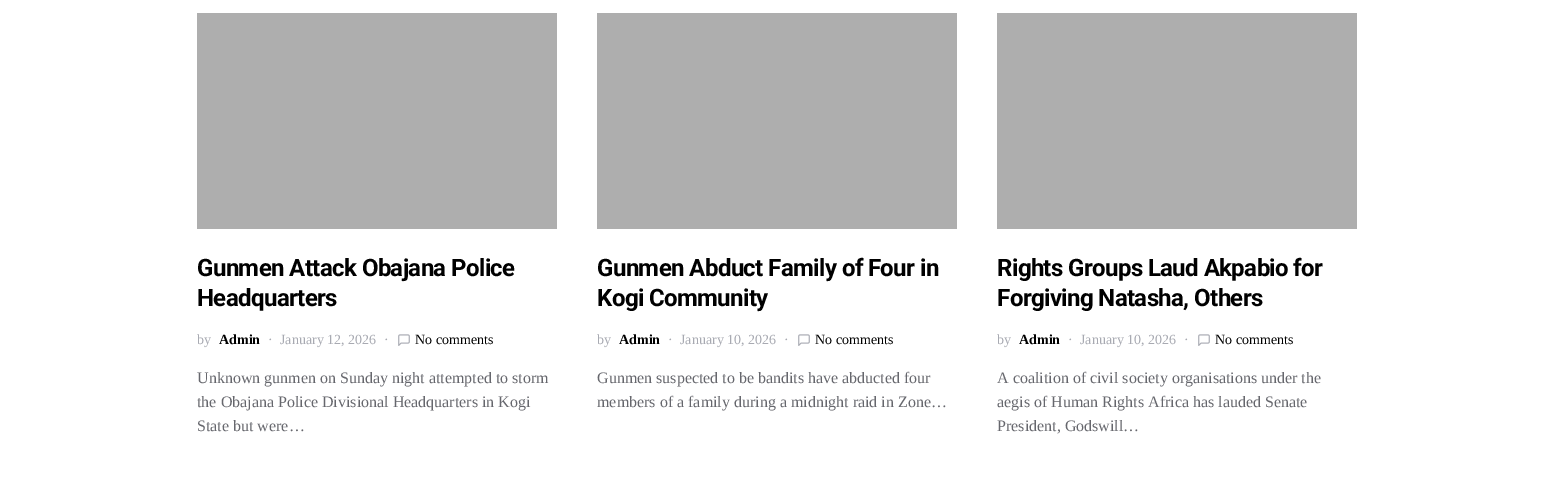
%!PS
<< /PageSize [1553 479] >> setpagedevice
/picture { 5 dict begin { /h /w /y /x /name } { exch def } forall
  gsave x y translate w h scale
  w h 8 [w 0 0 h 0 0] name (r) file false 3 colorimage grestore end } def
0 479 translate 1 -1 scale
4 setmiterlimit
1 setgray
0 0 1553 479 rectfill
0.682 setgray
197 13 360 216 rectfill
/Roboto-Bold [24 0 0 -24 0 0] selectfont
0 setgray
197 276 moveto -0.6 0 (Gunmen Attack Obajana Police) ashow
197 306 moveto -0.6 0 (Headquarters) ashow
/LiberationSerif-Regular [14 0 0 -14 0 0] selectfont
0.659 0.667 0.698 setrgbcolor
197 344 moveto (by) show
/LiberationSerif-Bold [14 0 0 -14 0 0] selectfont
0 setgray
219 344 moveto (Admin) show
/LiberationSerif-Regular [14 0 0 -14 0 0] selectfont
0.659 0.667 0.698 setrgbcolor
268 344 moveto (·) show
280 344 moveto (January 12, 2026) show
384 344 moveto (·) show
(img1.rgb) 398 334 12 12 picture
0 setgray
415 344 moveto (No comments) show
/LiberationSerif-Regular [16 0 0 -16 0 0] selectfont
0.4 0.404 0.427 setrgbcolor
197 383 moveto (Unknown gunmen on Sunday night attempted to storm) show
197 407 moveto (the Obajana Police Divisional Headquarters in Kogi) show
197 431 moveto (State but were…) show
0.682 setgray
597 13 360 216 rectfill
/Roboto-Bold [24 0 0 -24 0 0] selectfont
0 setgray
597 276 moveto -0.6 0 (Gunmen Abduct Family of Four in) ashow
597 306 moveto -0.6 0 (Kogi Community) ashow
/LiberationSerif-Regular [14 0 0 -14 0 0] selectfont
0.659 0.667 0.698 setrgbcolor
597 344 moveto (by) show
/LiberationSerif-Bold [14 0 0 -14 0 0] selectfont
0 setgray
619 344 moveto (Admin) show
/LiberationSerif-Regular [14 0 0 -14 0 0] selectfont
0.659 0.667 0.698 setrgbcolor
668 344 moveto (·) show
680 344 moveto (January 10, 2026) show
784 344 moveto (·) show
(img1.rgb) 798 334 12 12 picture
0 setgray
815 344 moveto (No comments) show
/LiberationSerif-Regular [16 0 0 -16 0 0] selectfont
0.4 0.404 0.427 setrgbcolor
597 383 moveto (Gunmen suspected to be bandits have abducted four) show
597 407 moveto (members of a family during a midnight raid in Zone…) show
0.682 setgray
997 13 360 216 rectfill
/Roboto-Bold [24 0 0 -24 0 0] selectfont
0 setgray
997 276 moveto -0.6 0 (Rights Groups Laud Akpabio for) ashow
997 306 moveto -0.6 0 (Forgiving Natasha, Others) ashow
/LiberationSerif-Regular [14 0 0 -14 0 0] selectfont
0.659 0.667 0.698 setrgbcolor
997 344 moveto (by) show
/LiberationSerif-Bold [14 0 0 -14 0 0] selectfont
0 setgray
1019 344 moveto (Admin) show
/LiberationSerif-Regular [14 0 0 -14 0 0] selectfont
0.659 0.667 0.698 setrgbcolor
1068 344 moveto (·) show
1080 344 moveto (January 10, 2026) show
1184 344 moveto (·) show
(img1.rgb) 1198 334 12 12 picture
0 setgray
1215 344 moveto (No comments) show
/LiberationSerif-Regular [16 0 0 -16 0 0] selectfont
0.4 0.404 0.427 setrgbcolor
997 383 moveto (A coalition of civil society organisations under the) show
997 407 moveto (aegis of Human Rights Africa has lauded Senate) show
997 431 moveto (President, Godswill…) show
showpage
